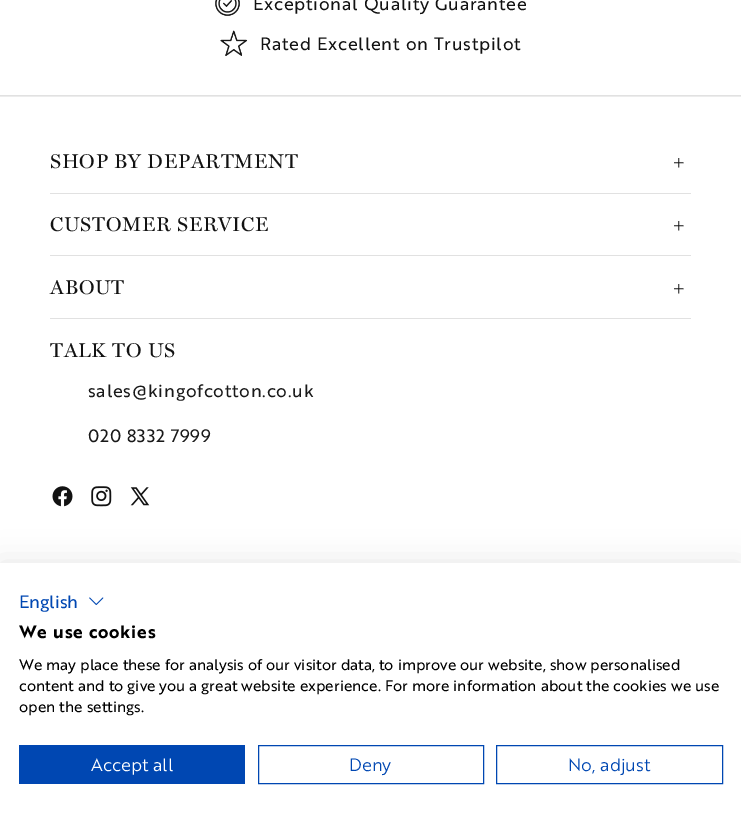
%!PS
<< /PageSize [741 817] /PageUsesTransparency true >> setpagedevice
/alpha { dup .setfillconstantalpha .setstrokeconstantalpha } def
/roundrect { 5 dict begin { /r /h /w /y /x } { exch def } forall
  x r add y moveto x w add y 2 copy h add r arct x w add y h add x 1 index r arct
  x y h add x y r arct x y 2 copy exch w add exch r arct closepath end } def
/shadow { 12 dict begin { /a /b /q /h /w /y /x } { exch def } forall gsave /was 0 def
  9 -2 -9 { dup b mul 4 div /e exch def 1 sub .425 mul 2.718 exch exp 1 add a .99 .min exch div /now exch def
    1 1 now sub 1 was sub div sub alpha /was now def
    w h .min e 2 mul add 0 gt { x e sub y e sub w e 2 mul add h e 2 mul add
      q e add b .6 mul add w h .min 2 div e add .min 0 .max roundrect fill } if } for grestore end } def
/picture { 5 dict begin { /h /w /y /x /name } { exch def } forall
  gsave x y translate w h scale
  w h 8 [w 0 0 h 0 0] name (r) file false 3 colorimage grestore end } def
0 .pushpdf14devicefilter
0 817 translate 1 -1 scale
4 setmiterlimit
1 setgray
0 0 741 817 rectfill
0.882 setgray
0 95 741 1 rectfill
(img1.rgb) 215 0 25 16 picture
/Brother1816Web-Regular [17.5 0 0 -17.5 0 0] selectfont
0.071 setgray
253 10 moveto 0.75 0 (Exceptional Quality Guarantee) ashow
(img2.rgb) 220 30 28 26 picture
260 50 moveto 0.75 0 (Rated Excellent on Trustpilot) ashow
0.925 setgray
0 96 741 1 rectfill
/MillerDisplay-Regular [20 0 0 -20 0 0] selectfont
0.071 setgray
50 168 moveto 0.75 0 (SHOP BY DEPARTMENT) ashow
673 168 moveto 0.75 0 (+) ashow
0.882 setgray
50 193 641 1 rectfill
0.071 setgray
50 231 moveto 0.75 0 (CUSTOMER SERVICE) ashow
673 231 moveto 0.75 0 (+) ashow
0.882 setgray
50 255 641 1 rectfill
0.071 setgray
50 294 moveto 0.75 0 (ABOUT) ashow
673 294 moveto 0.75 0 (+) ashow
0.882 setgray
50 318 641 1 rectfill
0.071 setgray
50 357 moveto 0.75 0 (TALK TO US) ashow
/Brother1816Web-Regular [17.5 0 0 -17.5 0 0] selectfont
0.098 setgray
88 397 moveto 0.75 0 (sales@kingofcotton.co.uk) ashow
88 442 moveto 0.75 0 (020 8332 7999) ashow
(img3.rgb) 52 486 21 21 picture
(img4.rgb) 91 486 21 21 picture
(img5.rgb) 130 487 20 19 picture
0 setgray
0 563 741 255 0 15 0.1 shadow
1 setgray
0 563 741 254 rectfill
0 0.278 0.698 setrgbcolor
19 608 moveto (English) show
(img6.rgb) 89 597 15 8 picture
/Brother1816Web-Bold [17.5 0 0 -17.5 0 0] selectfont
0 setgray
19 638 moveto 0.75 0 (We use cookies) ashow
/Brother1816Web-Regular [15 0 0 -15 0 0] selectfont
19 670 moveto (We may place these for analysis of our visitor data, to improve our website, show personalised) show
19 691 moveto (content and to give you a great website experience. For more information about the cookies we use) show
19 712 moveto (open the settings.) show
0 0.278 0.698 setrgbcolor
19 745 226 39 rectfill
/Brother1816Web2-Regular [17.5 0 0 -17.5 0 0] selectfont
1 setgray
91 771 moveto (Accept all) show
0 0.278 0.698 setrgbcolor
258.5 745.5 225 38 rectstroke
349 771 moveto (Deny) show
496.5 745.5 226 38 rectstroke
568 771 moveto (No, adjust) show
.poppdf14devicefilter showpage
